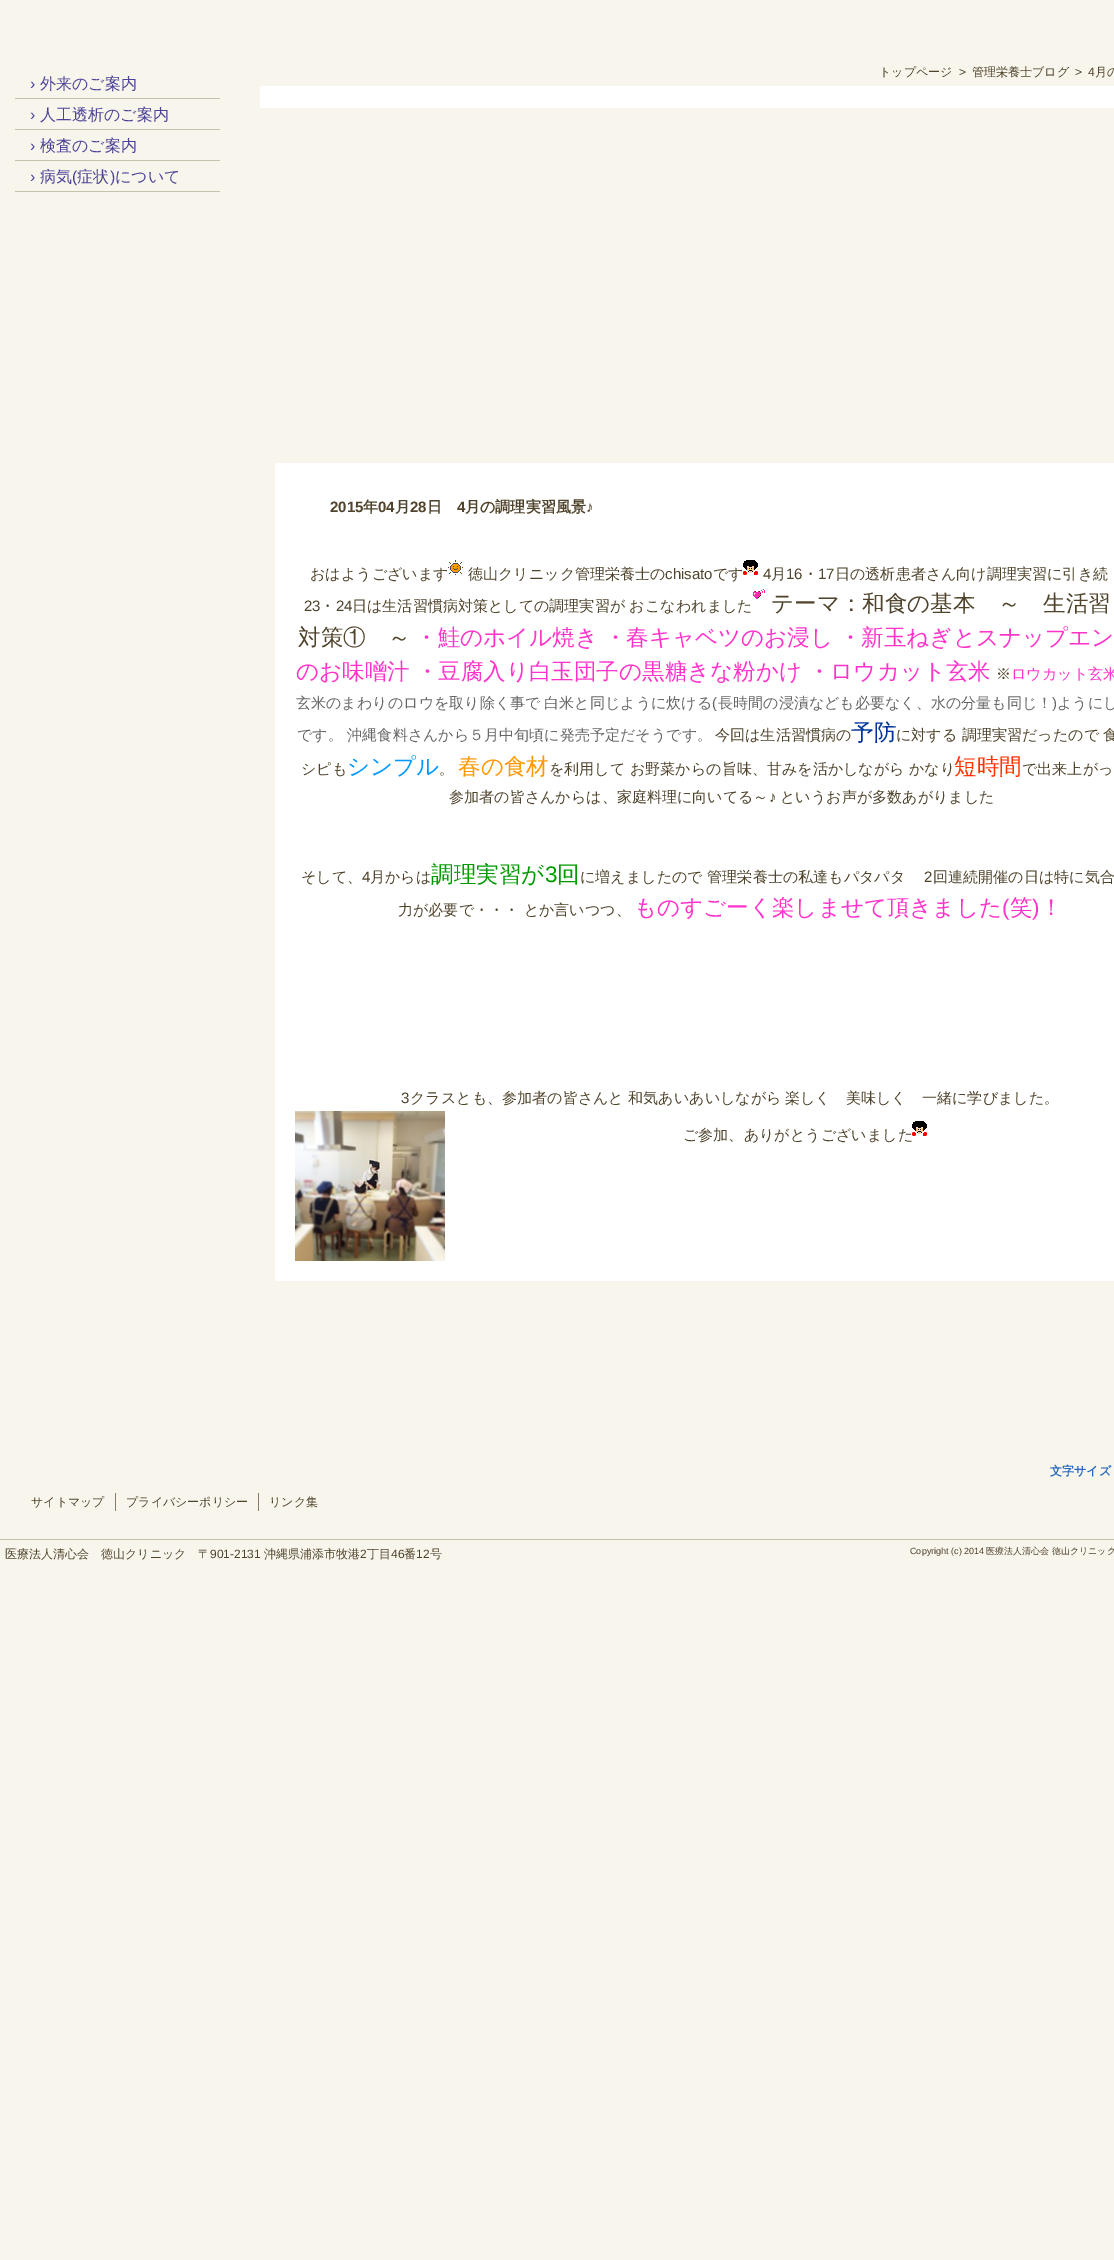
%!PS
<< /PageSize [1114 2260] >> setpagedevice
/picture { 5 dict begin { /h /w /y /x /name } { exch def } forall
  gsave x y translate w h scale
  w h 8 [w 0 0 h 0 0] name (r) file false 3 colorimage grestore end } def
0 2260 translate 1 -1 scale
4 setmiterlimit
0.973 0.961 0.925 setrgbcolor
0 0 1114 2260 rectfill
0.769 0.761 0.663 setrgbcolor
15 98 205 1 rectfill
/LiberationSans-Regular [16 0 0 -16 0 0] selectfont
0.298 0.263 0.596 setrgbcolor
30 89 moveto (›) show
/WenQuanYiZenHei-Medium [16 0 0 -16 0 0] selectfont
40 89 moveto (外来のご案内) show
0.769 0.761 0.663 setrgbcolor
15 129 205 1 rectfill
/LiberationSans-Regular [16 0 0 -16 0 0] selectfont
0.298 0.263 0.596 setrgbcolor
30 120 moveto (›) show
/WenQuanYiZenHei-Medium [16 0 0 -16 0 0] selectfont
40 120 moveto (人工透析のご案内) show
0.769 0.761 0.663 setrgbcolor
15 160 205 1 rectfill
/LiberationSans-Regular [16 0 0 -16 0 0] selectfont
0.298 0.263 0.596 setrgbcolor
30 151 moveto (›) show
/WenQuanYiZenHei-Medium [16 0 0 -16 0 0] selectfont
40 151 moveto (検査のご案内) show
0.769 0.761 0.663 setrgbcolor
15 191 205 1 rectfill
/LiberationSans-Regular [16 0 0 -16 0 0] selectfont
0.298 0.263 0.596 setrgbcolor
30 182 moveto (›) show
/WenQuanYiZenHei-Medium [16 0 0 -16 0 0] selectfont
40 182 moveto (病気) show
/LiberationSans-Regular [16 0 0 -16 0 0] selectfont
72 182 moveto (\() show
/WenQuanYiZenHei-Medium [16 0 0 -16 0 0] selectfont
77 182 moveto (症状) show
/LiberationSans-Regular [16 0 0 -16 0 0] selectfont
110 182 moveto (\)) show
/WenQuanYiZenHei-Medium [16 0 0 -16 0 0] selectfont
115 182 moveto (について) show
/WenQuanYiZenHei-Medium [12 0 0 -12 0 0] selectfont
0.31 0.263 0.169 setrgbcolor
879 76 moveto (トップページ) show
/LiberationSans-Regular [12 0 0 -12 0 0] selectfont
959 76 moveto (>) show
/WenQuanYiZenHei-Medium [12 0 0 -12 0 0] selectfont
972 76 moveto (管理栄養士ブログ) show
/LiberationSans-Regular [12 0 0 -12 0 0] selectfont
1075 76 moveto (>) show
1088 76 moveto (4) show
/WenQuanYiZenHei-Medium [12 0 0 -12 0 0] selectfont
1095 76 moveto (月の) show
1 setgray
260 86 854 22 rectfill
275 463 839 818 rectfill
/LiberationSans-Bold [15.05 0 0 -15.05 0 0] selectfont
0.31 0.263 0.169 setrgbcolor
330 512 moveto (2015) show
/WenQuanYiZenHei-Bold [15.05 0 0 -15.05 0 0] selectfont
363 512 moveto (年) show
/LiberationSans-Bold [15.05 0 0 -15.05 0 0] selectfont
378 512 moveto (04) show
/WenQuanYiZenHei-Bold [15.05 0 0 -15.05 0 0] selectfont
395 512 moveto (月) show
/LiberationSans-Bold [15.05 0 0 -15.05 0 0] selectfont
410 512 moveto (28) show
/WenQuanYiZenHei-Bold [15.05 0 0 -15.05 0 0] selectfont
427 512 moveto (日) show
/LiberationSans-Bold [15.05 0 0 -15.05 0 0] selectfont
457 512 moveto (4) show
/WenQuanYiZenHei-Bold [15.05 0 0 -15.05 0 0] selectfont
465 512 moveto (月の調理実習風景) show
/LiberationSans-Bold [15.05 0 0 -15.05 0 0] selectfont
586 512 moveto (♪) show
/WenQuanYiZenHei-Medium [15.05 0 0 -15.05 0 0] selectfont
310 579 moveto (おはようございます) show
(img1.rgb) 448 560 15 15 picture
468 579 moveto (徳山クリニック管理栄養士の) show
/LiberationSans-Regular [15.05 0 0 -15.05 0 0] selectfont
665 579 moveto (chisato) show
/WenQuanYiZenHei-Medium [15.05 0 0 -15.05 0 0] selectfont
713 579 moveto (です) show
(img2.rgb) 743 560 15 15 picture
/LiberationSans-Regular [15.05 0 0 -15.05 0 0] selectfont
763 579 moveto (4) show
/WenQuanYiZenHei-Medium [15.05 0 0 -15.05 0 0] selectfont
771 579 moveto (月) show
/LiberationSans-Regular [15.05 0 0 -15.05 0 0] selectfont
786 579 moveto (16) show
/WenQuanYiZenHei-Medium [15.05 0 0 -15.05 0 0] selectfont
803 579 moveto (・) show
/LiberationSans-Regular [15.05 0 0 -15.05 0 0] selectfont
818 579 moveto (17) show
/WenQuanYiZenHei-Medium [15.05 0 0 -15.05 0 0] selectfont
835 579 moveto (日の透析患者さん向け調理実習に引き続) show
/LiberationSans-Regular [15.05 0 0 -15.05 0 0] selectfont
304 611 moveto (23) show
/WenQuanYiZenHei-Medium [15.05 0 0 -15.05 0 0] selectfont
320 611 moveto (・) show
/LiberationSans-Regular [15.05 0 0 -15.05 0 0] selectfont
336 611 moveto (24) show
/WenQuanYiZenHei-Medium [15.05 0 0 -15.05 0 0] selectfont
352 611 moveto (日は生活習慣病対策としての調理実習が おこなわれました) show
(img3.rgb) 753 589 12 10 picture
/WenQuanYiZenHei-Medium [22.55 0 0 -22.55 0 0] selectfont
771 611 moveto (テーマ：和食の基本　～　生活習) show
298 645 moveto (対策①　～) show
1 0.2 0.8 setrgbcolor
415 645 moveto -1 0 32 (・鮭のホイル焼き ・春キャベツのお浸し ・新玉ねぎとスナップエン) widthshow
296 679 moveto -1 0 32 (のお味噌汁 ・豆腐入り白玉団子の黒糖きな粉かけ ・ロウカット玄米) widthshow
/WenQuanYiZenHei-Medium [15.05 0 0 -15.05 0 0] selectfont
0.31 0.263 0.169 setrgbcolor
996 679 moveto (※) show
1 0.2 0.8 setrgbcolor
1011 679 moveto (ロウカット玄米) show
0.4 setgray
296 708 moveto -1 0 32 (玄米のまわりのロウを取り除く事で 白米と同じように炊ける) widthshow
/LiberationSans-Regular [15.05 0 0 -15.05 0 0] selectfont
712 708 moveto (\() show
/WenQuanYiZenHei-Medium [15.05 0 0 -15.05 0 0] selectfont
718 708 moveto (長時間の浸漬なども必要なく、水の分量も同じ！) show
/LiberationSans-Regular [15.05 0 0 -15.05 0 0] selectfont
1052 708 moveto (\)) show
/WenQuanYiZenHei-Medium [15.05 0 0 -15.05 0 0] selectfont
1057 708 moveto (ようにし) show
297 740 moveto (です。 沖縄食料さんから５月中旬頃に発売予定だそうです。) show
0.31 0.263 0.169 setrgbcolor
715 740 moveto (今回は生活習慣病の) show
/WenQuanYiZenHei-Medium [22.55 0 0 -22.55 0 0] selectfont
0 0.2 0.6 setrgbcolor
851 740 moveto (予防) show
/WenQuanYiZenHei-Medium [15.05 0 0 -15.05 0 0] selectfont
0.31 0.263 0.169 setrgbcolor
896 740 moveto (に対する 調理実習だったので 食) show
301 774 moveto (シピも) show
/WenQuanYiZenHei-Medium [22.55 0 0 -22.55 0 0] selectfont
0 0.6 1 setrgbcolor
347 774 moveto (シンプル) show
/WenQuanYiZenHei-Medium [15.05 0 0 -15.05 0 0] selectfont
0.31 0.263 0.169 setrgbcolor
439 774 moveto (。) show
/WenQuanYiZenHei-Medium [22.55 0 0 -22.55 0 0] selectfont
1 0.6 0 setrgbcolor
458 774 moveto (春の食材) show
/WenQuanYiZenHei-Medium [15.05 0 0 -15.05 0 0] selectfont
0.31 0.263 0.169 setrgbcolor
549 774 moveto (を利用して お野菜からの旨味、甘みを活かしながら かなり) show
/WenQuanYiZenHei-Medium [22.55 0 0 -22.55 0 0] selectfont
1 0.2 0 setrgbcolor
954 774 moveto (短時間) show
/WenQuanYiZenHei-Medium [15.05 0 0 -15.05 0 0] selectfont
0.31 0.263 0.169 setrgbcolor
1022 774 moveto (で出来上がっ) show
449 802 moveto (参加者の皆さんからは、家庭料理に向いてる～) show
/LiberationSans-Regular [15.05 0 0 -15.05 0 0] selectfont
769 802 moveto (♪) show
/WenQuanYiZenHei-Medium [15.05 0 0 -15.05 0 0] selectfont
780 802 moveto (というお声が多数あがりました) show
301 882 moveto (そして、) show
/LiberationSans-Regular [15.05 0 0 -15.05 0 0] selectfont
362 882 moveto (4) show
/WenQuanYiZenHei-Medium [15.05 0 0 -15.05 0 0] selectfont
370 882 moveto (月からは) show
/WenQuanYiZenHei-Medium [22.55 0 0 -22.55 0 0] selectfont
0 0.6 0 setrgbcolor
431 882 moveto (調理実習が) show
/LiberationSans-Regular [22.55 0 0 -22.55 0 0] selectfont
545 882 moveto (3) show
/WenQuanYiZenHei-Medium [22.55 0 0 -22.55 0 0] selectfont
557 882 moveto (回) show
/WenQuanYiZenHei-Medium [15.05 0 0 -15.05 0 0] selectfont
0.31 0.263 0.169 setrgbcolor
580 882 moveto (に増えましたので 管理栄養士の私達もパタパタ) show
/LiberationSans-Regular [15.05 0 0 -15.05 0 0] selectfont
924 882 moveto (2) show
/WenQuanYiZenHei-Medium [15.05 0 0 -15.05 0 0] selectfont
933 882 moveto (回連続開催の日は特に気合) show
398 915 moveto (力が必要で・・・ とか言いつつ、) show
/WenQuanYiZenHei-Medium [22.55 0 0 -22.55 0 0] selectfont
1 0.2 0.8 setrgbcolor
634 915 moveto (ものすごーく楽しませて頂きました) show
/LiberationSans-Regular [22.55 0 0 -22.55 0 0] selectfont
1002 915 moveto (\() show
/WenQuanYiZenHei-Medium [22.55 0 0 -22.55 0 0] selectfont
1010 915 moveto (笑) show
/LiberationSans-Regular [22.55 0 0 -22.55 0 0] selectfont
1032 915 moveto (\)) show
/WenQuanYiZenHei-Medium [22.55 0 0 -22.55 0 0] selectfont
1040 915 moveto (！) show
/LiberationSans-Regular [15.05 0 0 -15.05 0 0] selectfont
0.31 0.263 0.169 setrgbcolor
401 1103 moveto (3) show
/WenQuanYiZenHei-Medium [15.05 0 0 -15.05 0 0] selectfont
410 1103 moveto (クラスとも、参加者の皆さんと 和気あいあいしながら) show
785 1103 moveto (楽しく) show
846 1103 moveto (美味しく) show
922 1103 moveto (一緒に学びました。) show
(img4.rgb) 295 1111 150 150 picture
683 1140 moveto (ご参加、ありがとうございました) show
(img2.rgb) 912 1121 15 15 picture
/WenQuanYiZenHei-Bold [12 0 0 -12 0 0] selectfont
0.141 0.404 0.745 setrgbcolor
1050 1475 moveto (文字サイズ) show
0.769 0.761 0.663 setrgbcolor
0 1539 1114 1 rectfill
0.541 0.482 0.408 setrgbcolor
115 1493 1 18 rectfill
/WenQuanYiZenHei-Medium [12 0 0 -12 0 0] selectfont
0.31 0.263 0.169 setrgbcolor
31 1506 moveto (サイトマップ) show
0.541 0.482 0.408 setrgbcolor
258 1493 1 18 rectfill
0.31 0.263 0.169 setrgbcolor
126 1506 moveto (プライバシーポリシー) show
269 1506 moveto (リンク集) show
5 1558 moveto (医療法人清心会　徳山クリニック　〒) show
/LiberationSans-Regular [12 0 0 -12 0 0] selectfont
210 1558 moveto (901-2131) show
/WenQuanYiZenHei-Medium [12 0 0 -12 0 0] selectfont
264 1558 moveto (沖縄県浦添市牧港) show
/LiberationSans-Regular [12 0 0 -12 0 0] selectfont
360 1558 moveto (2) show
/WenQuanYiZenHei-Medium [12 0 0 -12 0 0] selectfont
367 1558 moveto (丁目) show
/LiberationSans-Regular [12 0 0 -12 0 0] selectfont
391 1558 moveto (46) show
/WenQuanYiZenHei-Medium [12 0 0 -12 0 0] selectfont
404 1558 moveto (番) show
/LiberationSans-Regular [12 0 0 -12 0 0] selectfont
416 1558 moveto (12) show
/WenQuanYiZenHei-Medium [12 0 0 -12 0 0] selectfont
430 1558 moveto (号) show
/LiberationSans-Regular [9 0 0 -9 0 0] selectfont
910 1554 moveto (Copyright \(c\) 2014) show
/WenQuanYiZenHei-Medium [9 0 0 -9 0 0] selectfont
986 1554 moveto (医療法人清心会 徳山クリニック) show
showpage
